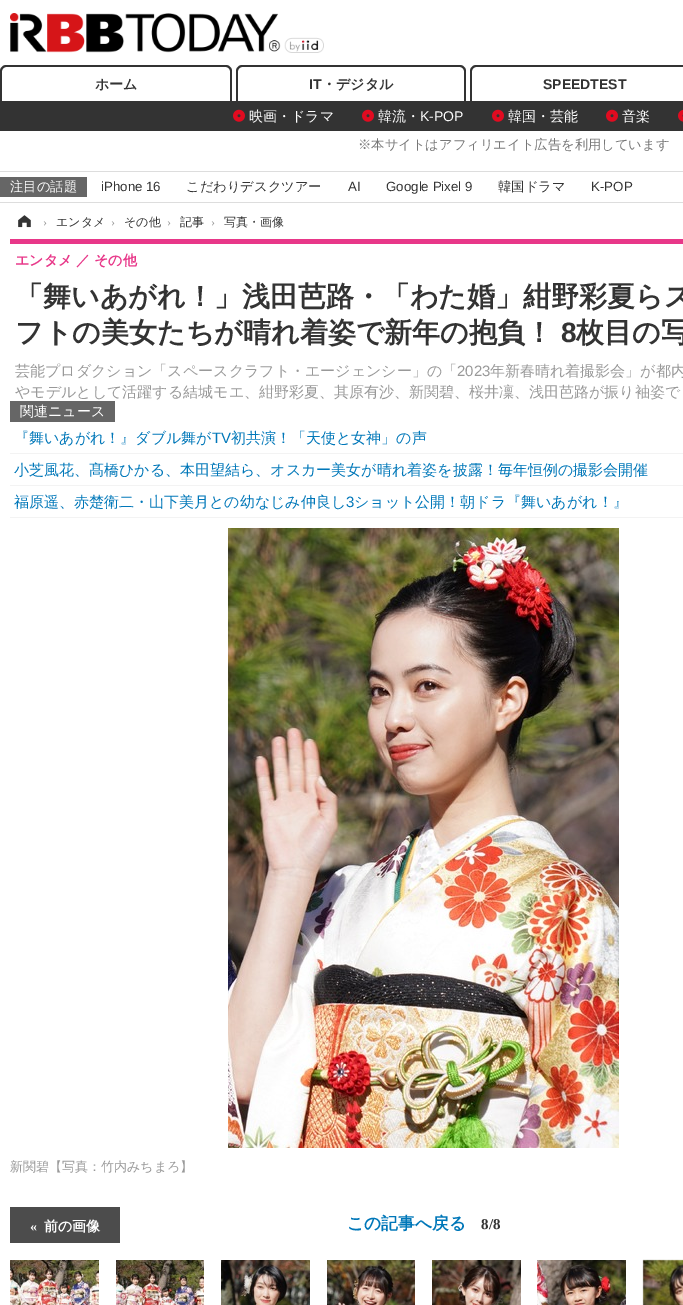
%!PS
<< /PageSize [683 1305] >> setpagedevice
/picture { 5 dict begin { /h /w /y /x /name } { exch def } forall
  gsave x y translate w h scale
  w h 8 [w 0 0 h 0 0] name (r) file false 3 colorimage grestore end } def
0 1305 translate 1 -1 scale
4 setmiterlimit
1 setgray
0 0 683 1305 rectfill
(img1.rgb) 10 13 314 40 picture
0.2 setgray
0 101 683 30 rectfill
newpath 6 65 moveto 226 65 lineto 229 65 232 68 232 71 curveto 232 101 lineto 0 101 lineto 0 71 lineto 0 68 3 65 6 65 curveto closepath 6 67 moveto 226 67 lineto 228 67 230 69 230 71 curveto 230 101 lineto 2 101 lineto 2 71 lineto 2 69 4 67 6 67 curveto closepath eofill
/WenQuanYiZenHei-Bold [14 0 0 -14 0 0] selectfont
95 89 moveto (ホーム) show
newpath 242 65 moveto 460 65 lineto 463 65 466 68 466 71 curveto 466 101 lineto 236 101 lineto 236 71 lineto 236 68 239 65 242 65 curveto closepath 242 67 moveto 460 67 lineto 462 67 464 69 464 71 curveto 464 101 lineto 238 101 lineto 238 71 lineto 238 69 240 67 242 67 curveto closepath eofill
/LiberationSans-Bold [14 0 0 -14 0 0] selectfont
309 89 moveto (IT) show
/WenQuanYiZenHei-Bold [14 0 0 -14 0 0] selectfont
322 89 moveto (・デジタル) show
newpath 476 65 moveto 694 65 lineto 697 65 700 68 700 71 curveto 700 101 lineto 470 101 lineto 470 71 lineto 470 68 473 65 476 65 curveto closepath 476 67 moveto 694 67 lineto 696 67 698 69 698 71 curveto 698 101 lineto 472 101 lineto 472 71 lineto 472 69 474 67 476 67 curveto closepath eofill
/LiberationSans-Bold [14 0 0 -14 0 0] selectfont
543 89 moveto (SPEEDTEST) show
(img2.rgb) 233 109 12 13 picture
/WenQuanYiZenHei-Medium [14 0 0 -14 0 0] selectfont
1 setgray
249 121 moveto (映画・ドラマ) show
(img2.rgb) 362 109 12 13 picture
378 121 moveto (韓流・) show
/LiberationSans-Regular [14 0 0 -14 0 0] selectfont
420 121 moveto (K-POP) show
(img2.rgb) 492 109 12 13 picture
/WenQuanYiZenHei-Medium [14 0 0 -14 0 0] selectfont
508 121 moveto (韓国・芸能) show
(img2.rgb) 606 109 12 13 picture
622 121 moveto (音楽) show
(img3.rgb) 678 109 5 13 picture
/WenQuanYiZenHei-Medium [13.3 0 0 -13.3 0 0] selectfont
0.467 setgray
358 149 moveto (※本サイトはアフィリエイト広告を利用しています) show
0.867 setgray
0 171 683 1 rectfill
0 202 683 1 rectfill
0.4 setgray
0 177 87 20 rectfill
1 setgray
10 191 moveto (注目の話題) show
/LiberationSans-Regular [13.3 0 0 -13.3 0 0] selectfont
0.2 setgray
101 191 moveto (iPhone 16) show
/WenQuanYiZenHei-Medium [13.3 0 0 -13.3 0 0] selectfont
186 191 moveto (こだわりデスクツアー) show
/LiberationSans-Regular [13.3 0 0 -13.3 0 0] selectfont
348 191 moveto (AI) show
386 191 moveto (Google Pixel 9) show
/WenQuanYiZenHei-Medium [13.3 0 0 -13.3 0 0] selectfont
498 191 moveto (韓国ドラマ) show
/LiberationSans-Regular [13.3 0 0 -13.3 0 0] selectfont
591 191 moveto (K-POP) show
(img4.rgb) 18 215 13 13 picture
/LiberationSerif-Regular [12 0 0 -12 0 0] selectfont
0.6 setgray
43 226 moveto (›) show
/WenQuanYiZenHei-Medium [12 0 0 -12 0 0] selectfont
0.2 setgray
56 226 moveto (エンタメ) show
/LiberationSerif-Regular [12 0 0 -12 0 0] selectfont
0.6 setgray
111 226 moveto (›) show
/WenQuanYiZenHei-Medium [12 0 0 -12 0 0] selectfont
0.2 setgray
124 226 moveto (その他) show
/LiberationSerif-Regular [12 0 0 -12 0 0] selectfont
0.6 setgray
167 226 moveto (›) show
/WenQuanYiZenHei-Medium [12 0 0 -12 0 0] selectfont
0.2 setgray
180 226 moveto (記事) show
/LiberationSerif-Regular [12 0 0 -12 0 0] selectfont
0.6 setgray
211 226 moveto (›) show
/WenQuanYiZenHei-Medium [12 0 0 -12 0 0] selectfont
0.2 setgray
224 226 moveto (写真・画像) show
0.91 0.216 0.537 setrgbcolor
10 239 673 5 rectfill
/WenQuanYiZenHei-Bold [14 0 0 -14 0 0] selectfont
15 265 moveto (エンタメ) show
76 265 moveto (／) show
94 265 moveto (その他) show
/WenQuanYiZenHei-Bold [28 0 0 -28 0 0] selectfont
0.2 setgray
15 306 moveto (「舞いあがれ！」浅田芭路・「わた婚」紺野彩夏らス) show
15 342 moveto (フトの美女たちが晴れ着姿で新年の抱負！) show
/LiberationSans-Bold [28 0 0 -28 0 0] selectfont
561 342 moveto (8) show
/WenQuanYiZenHei-Bold [28 0 0 -28 0 0] selectfont
576 342 moveto (枚目の写) show
/WenQuanYiZenHei-Medium [15 0 0 -15 0 0] selectfont
0.6 setgray
15 376 moveto (芸能プロダクション「スペースクラフト・エージェンシー」の「) show
/LiberationSans-Regular [15 0 0 -15 0 0] selectfont
457 376 moveto (2023) show
/WenQuanYiZenHei-Medium [15 0 0 -15 0 0] selectfont
490 376 moveto (年新春晴れ着撮影会」が都内) show
15 397 moveto (やモデルとして活躍する結城モエ、紺野彩夏、其原有沙、新関碧、桜井凜、浅田芭路が振り袖姿で) show
0.4 setgray
10 401 105 21 rectfill
/WenQuanYiZenHei-Medium [14 0 0 -14 0 0] selectfont
1 setgray
20 416 moveto (関連ニュース) show
0.953 setgray
10 453 673 1 rectfill
/WenQuanYiZenHei-Medium [15 0 0 -15 0 0] selectfont
0 0.467 0.725 setrgbcolor
14 443 moveto (『舞いあがれ！』ダブル舞が) show
/LiberationSans-Regular [15 0 0 -15 0 0] selectfont
212 443 moveto (TV) show
/WenQuanYiZenHei-Medium [15 0 0 -15 0 0] selectfont
231 443 moveto (初共演！「天使と女神」の声) show
0.953 setgray
10 485 673 1 rectfill
0 0.467 0.725 setrgbcolor
14 475 moveto (小芝風花、髙橋ひかる、本田望結ら、オスカー美女が晴れ着姿を披露！毎年恒例の撮影会開催) show
0.953 setgray
10 517 673 1 rectfill
0 0.467 0.725 setrgbcolor
14 507 moveto (福原遥、赤楚衛二・山下美月との幼なじみ仲良し) show
/LiberationSans-Regular [15 0 0 -15 0 0] selectfont
346 507 moveto (3) show
/WenQuanYiZenHei-Medium [15 0 0 -15 0 0] selectfont
354 507 moveto (ショット公開！朝ドラ『舞いあがれ！』) show
(img5.rgb) 228 528 391 620 picture
/WenQuanYiZenHei-Medium [13 0 0 -13 0 0] selectfont
0.6 setgray
10 1171 moveto (新関碧【写真：竹内みちまろ】) show
0.298 setgray
10 1207 110 36 rectfill
/LiberationSerif-Bold [14 0 0 -14 0 0] selectfont
1 setgray
30 1231 moveto («) show
/WenQuanYiZenHei-Bold [14 0 0 -14 0 0] selectfont
44 1231 moveto (前の画像) show
/WenQuanYiZenHei-Bold [16.75 0 0 -16.75 0 0] selectfont
0 0.467 0.725 setrgbcolor
347 1229 moveto (この記事へ戻る) show
/LiberationSerif-Bold [15 0 0 -15 0 0] selectfont
0.2 setgray
481 1229 moveto (8/8) show
(img6.rgb) 10 1260 89 45 picture
(img7.rgb) 116 1260 88 45 picture
(img8.rgb) 221 1260 89 45 picture
(img9.rgb) 327 1260 88 45 picture
(img10.rgb) 432 1260 89 45 picture
(img11.rgb) 537 1260 89 45 picture
(img12.rgb) 642 1259 41 46 picture
showpage
